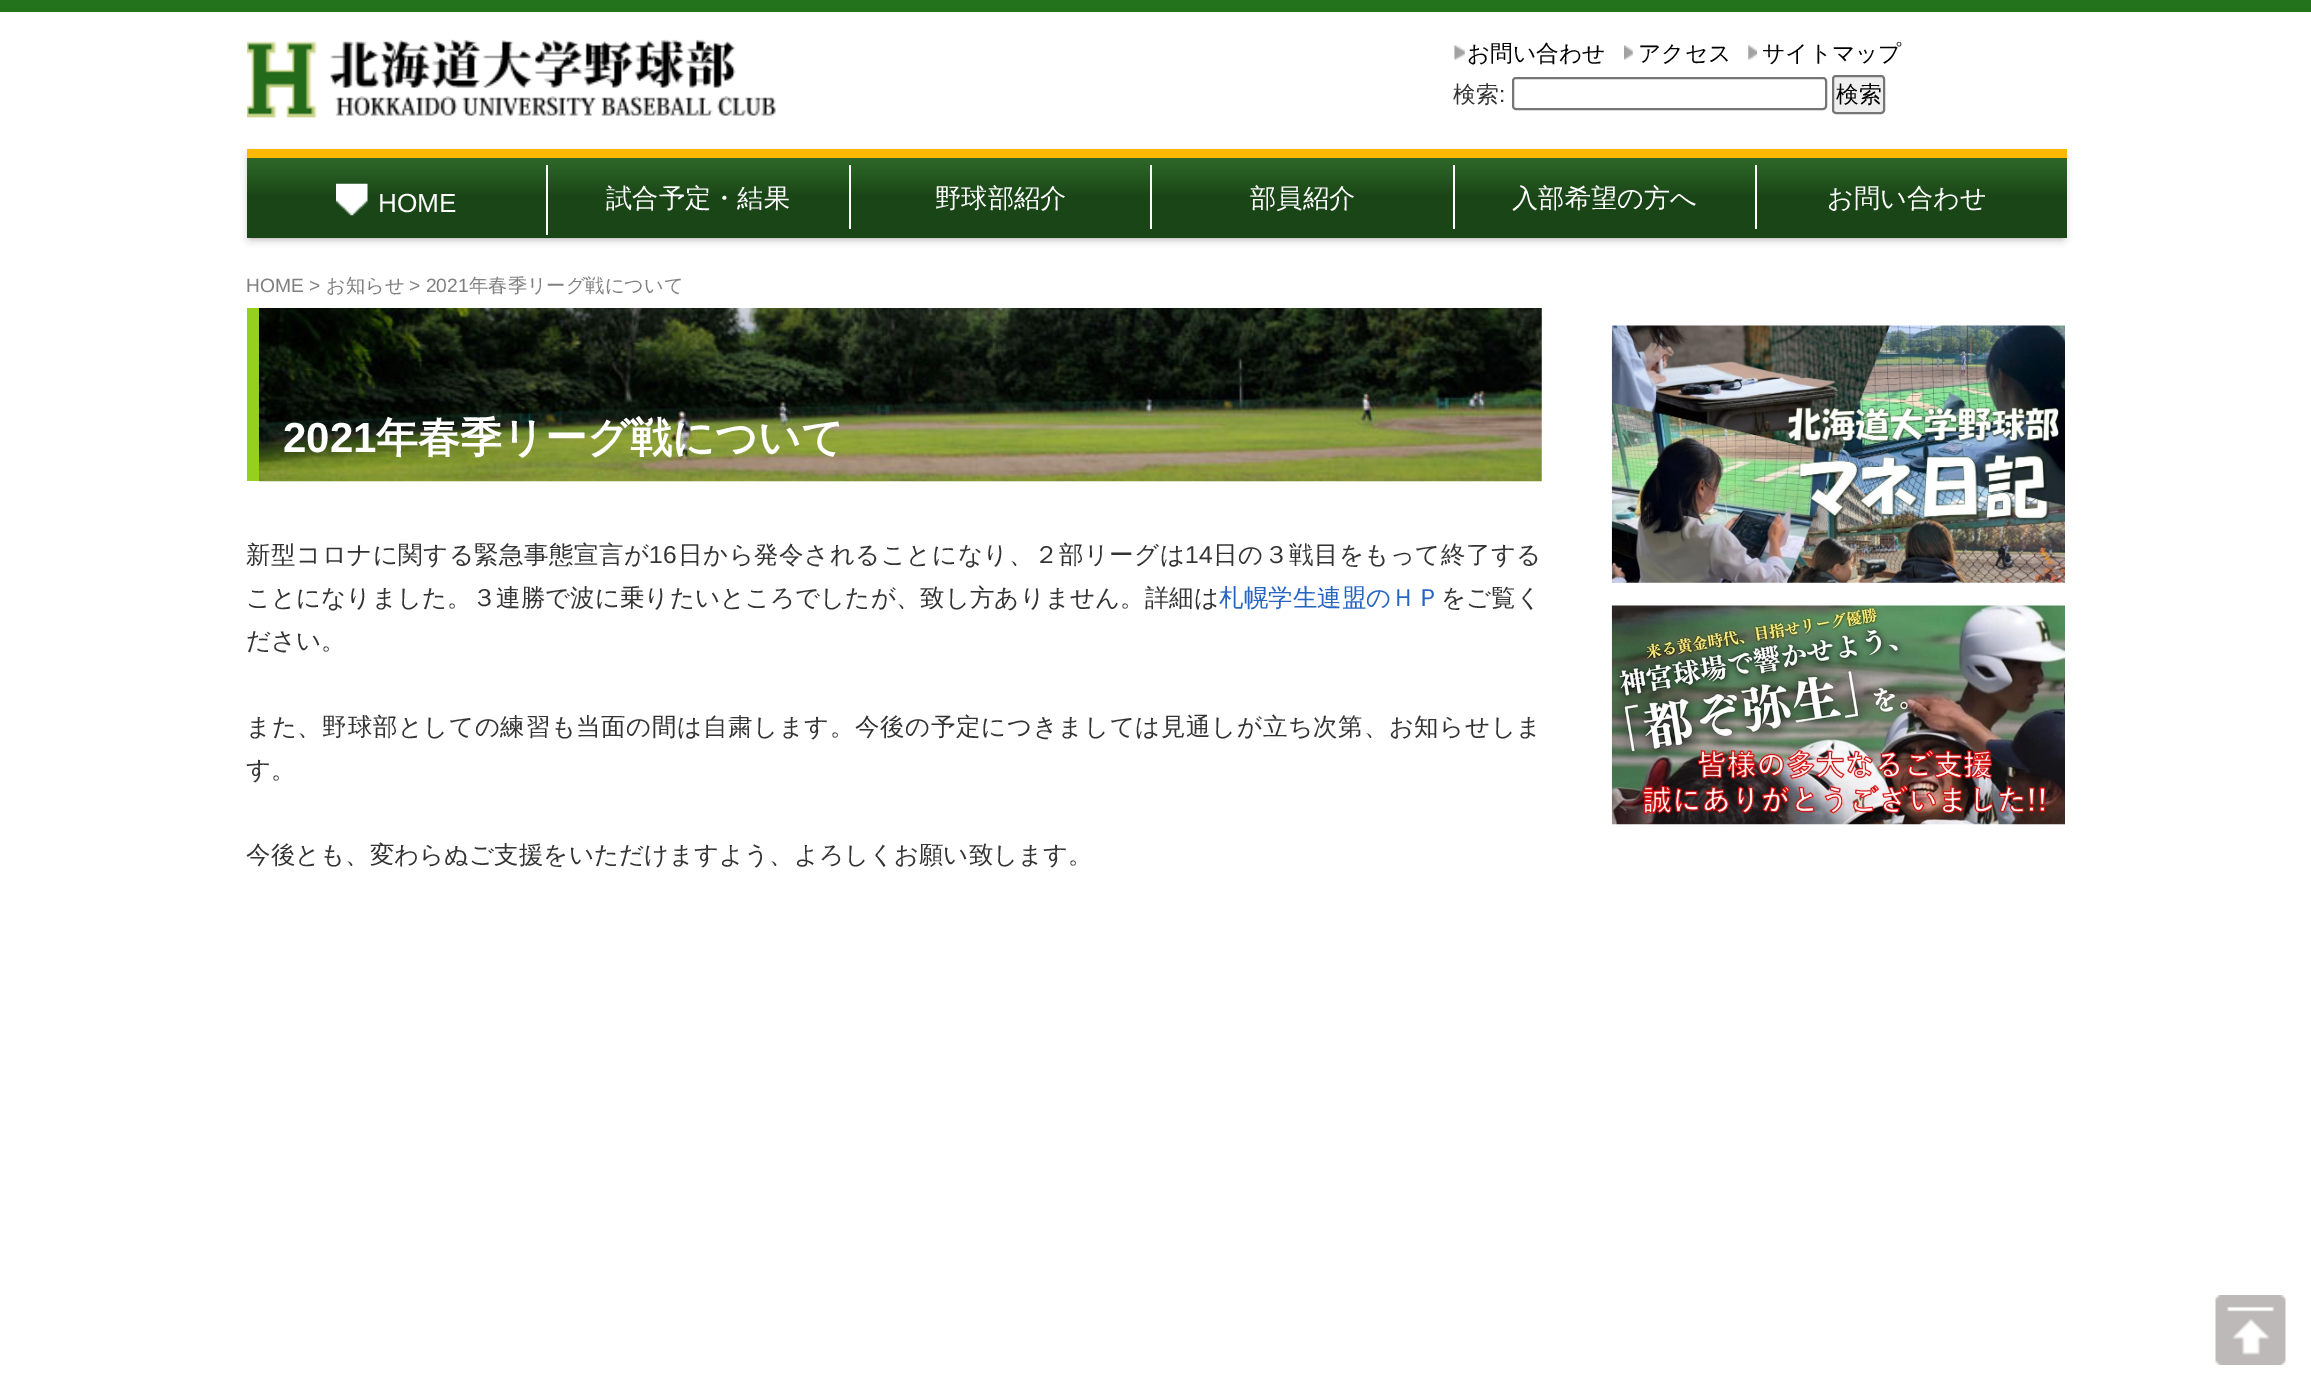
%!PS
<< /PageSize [2311 1400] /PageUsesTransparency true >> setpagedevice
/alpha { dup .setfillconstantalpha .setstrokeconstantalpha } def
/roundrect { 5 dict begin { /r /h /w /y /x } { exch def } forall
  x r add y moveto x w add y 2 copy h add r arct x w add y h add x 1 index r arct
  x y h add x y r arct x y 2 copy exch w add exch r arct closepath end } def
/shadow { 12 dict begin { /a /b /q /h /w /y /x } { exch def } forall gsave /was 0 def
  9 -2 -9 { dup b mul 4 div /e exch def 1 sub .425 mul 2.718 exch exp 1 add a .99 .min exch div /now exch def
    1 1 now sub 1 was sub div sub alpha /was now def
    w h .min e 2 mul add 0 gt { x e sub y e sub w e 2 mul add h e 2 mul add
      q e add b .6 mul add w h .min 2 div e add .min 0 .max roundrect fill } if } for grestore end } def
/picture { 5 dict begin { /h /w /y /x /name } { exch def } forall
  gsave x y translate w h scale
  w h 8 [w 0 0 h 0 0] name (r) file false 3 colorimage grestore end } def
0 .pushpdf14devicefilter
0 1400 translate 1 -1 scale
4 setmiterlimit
1 setgray
0 0 2311 1400 rectfill
0.137 0.451 0.11 setrgbcolor
0 0 2311 12 rectfill
(img1.rgb) 246 39 530 79 picture
(img2.rgb) 1454 45 11 15 picture
/WenQuanYiZenHei-Medium [22.75 0 0 -22.75 0 0] selectfont
0 setgray
1467 61 moveto (お問い合わせ) show
(img3.rgb) 1624 45 9 15 picture
1638 61 moveto (アクセス) show
(img4.rgb) 1748 45 9 15 picture
1762 61 moveto (サイトマップ) show
0.2 setgray
1453 102 moveto (検索) show
/LiberationSans-Regular [22.75 0 0 -22.75 0 0] selectfont
1499 102 moveto (:) show
0.463 setgray
2 setlinewidth
1513 78 313 31 3 roundrect stroke
0.937 setgray
1833 76 51 37 3 roundrect gsave fill grestore
0.463 setgray
stroke
/WenQuanYiZenHei-Medium [22.75 0 0 -22.75 0 0] selectfont
0 setgray
1836 102 moveto (検索) show
0.588 setgray
250 156 1813 82 0 4.5 1 shadow
gsave newpath 247 158 moveto 2067 158 lineto 2067 238 lineto 247 238 lineto closepath clip newpath
<< /ShadingType 2 /ColorSpace /DeviceRGB /Coords [1157 157 1157 238] /Extend [true true] /Function << /FunctionType 3 /Domain [0 1] /Functions [<< /FunctionType 2 /Domain [0 1] /C0 [0.184 0.416 0.161] /C1 [0.102 0.271 0.09] /N 1 >> << /FunctionType 2 /Domain [0 1] /C0 [0.102 0.271 0.09] /C1 [0.102 0.271 0.09] /N 1 >>] /Bounds [0.5] /Encode [0 1 0 1] >> >> shfill grestore
1 0.722 0 setrgbcolor
247 149 1820 9 rectfill
1 setgray
546 165 2 70 rectfill
(img5.rgb) 336 183 32 33 picture
/LiberationSans-Regular [26.25 0 0 -26.25 0 0] selectfont
378 212 moveto (HOME) show
849 165 2 64 rectfill
/WenQuanYiZenHei-Medium [26.25 0 0 -26.25 0 0] selectfont
606 207 moveto (試合予定・結果) show
1150 165 2 64 rectfill
935 207 moveto (野球部紹介) show
1453 165 2 64 rectfill
1250 207 moveto (部員紹介) show
1755 165 2 64 rectfill
1512 207 moveto (入部希望の方へ) show
1827 207 moveto (お問い合わせ) show
/LiberationSans-Regular [19.25 0 0 -19.25 0 0] selectfont
0.502 setgray
246 292 moveto (HOME >) show
/WenQuanYiZenHei-Medium [19.25 0 0 -19.25 0 0] selectfont
326 292 moveto (お知らせ) show
/LiberationSans-Regular [19.25 0 0 -19.25 0 0] selectfont
409 292 moveto (> 2021) show
/WenQuanYiZenHei-Medium [19.25 0 0 -19.25 0 0] selectfont
469 292 moveto (年春季リーグ戦について) show
(img6.rgb) 259 308 1283 174 picture
0.588 0.816 0.118 setrgbcolor
247 308 12 173 rectfill
/LiberationSans-Bold [42 0 0 -42 0 0] selectfont
1 setgray
283 452 moveto (2021) show
/WenQuanYiZenHei-Bold [42 0 0 -42 0 0] selectfont
376 452 moveto (年春季リーグ戦について) show
/WenQuanYiZenHei-Medium [24.5 0 0 -24.5 0 0] selectfont
0.2 setgray
246 563 moveto 0.5 0 (新型コロナに関する緊急事態宣言が) ashow
/LiberationSans-Regular [24.5 0 0 -24.5 0 0] selectfont
649 563 moveto 0.5 0 (16) ashow
/WenQuanYiZenHei-Medium [24.5 0 0 -24.5 0 0] selectfont
678 563 moveto 0.5 0 (日から発令されることになり、２部リーグは) ashow
/LiberationSans-Regular [24.5 0 0 -24.5 0 0] selectfont
1185 563 moveto 0.5 0 (14) ashow
/WenQuanYiZenHei-Medium [24.5 0 0 -24.5 0 0] selectfont
1213 563 moveto 0.5 0 (日の３戦目をもって終了する) ashow
246 606 moveto 0.05 0 (ことになりました。３連勝で波に乗りたいところでしたが、致し方ありません。詳細は) ashow
0.149 0.392 0.761 setrgbcolor
1219 606 moveto (札幌学生連盟のＨＰ) show
0.2 setgray
1441 606 moveto (をご覧く) show
246 649 moveto (ださい。) show
246 735 moveto 0.6 0 (また、野球部としての練習も当面の間は自粛します。今後の予定につきましては見通しが立ち次第、お知らせしま) ashow
246 778 moveto (す。) show
246 863 moveto (今後とも、変わらぬご支援をいただけますよう、よろしくお願い致します。) show
(img7.rgb) 1611 325 454 258 picture
(img8.rgb) 1611 605 454 220 picture
(img9.rgb) 2215 1295 71 70 picture
.poppdf14devicefilter showpage
